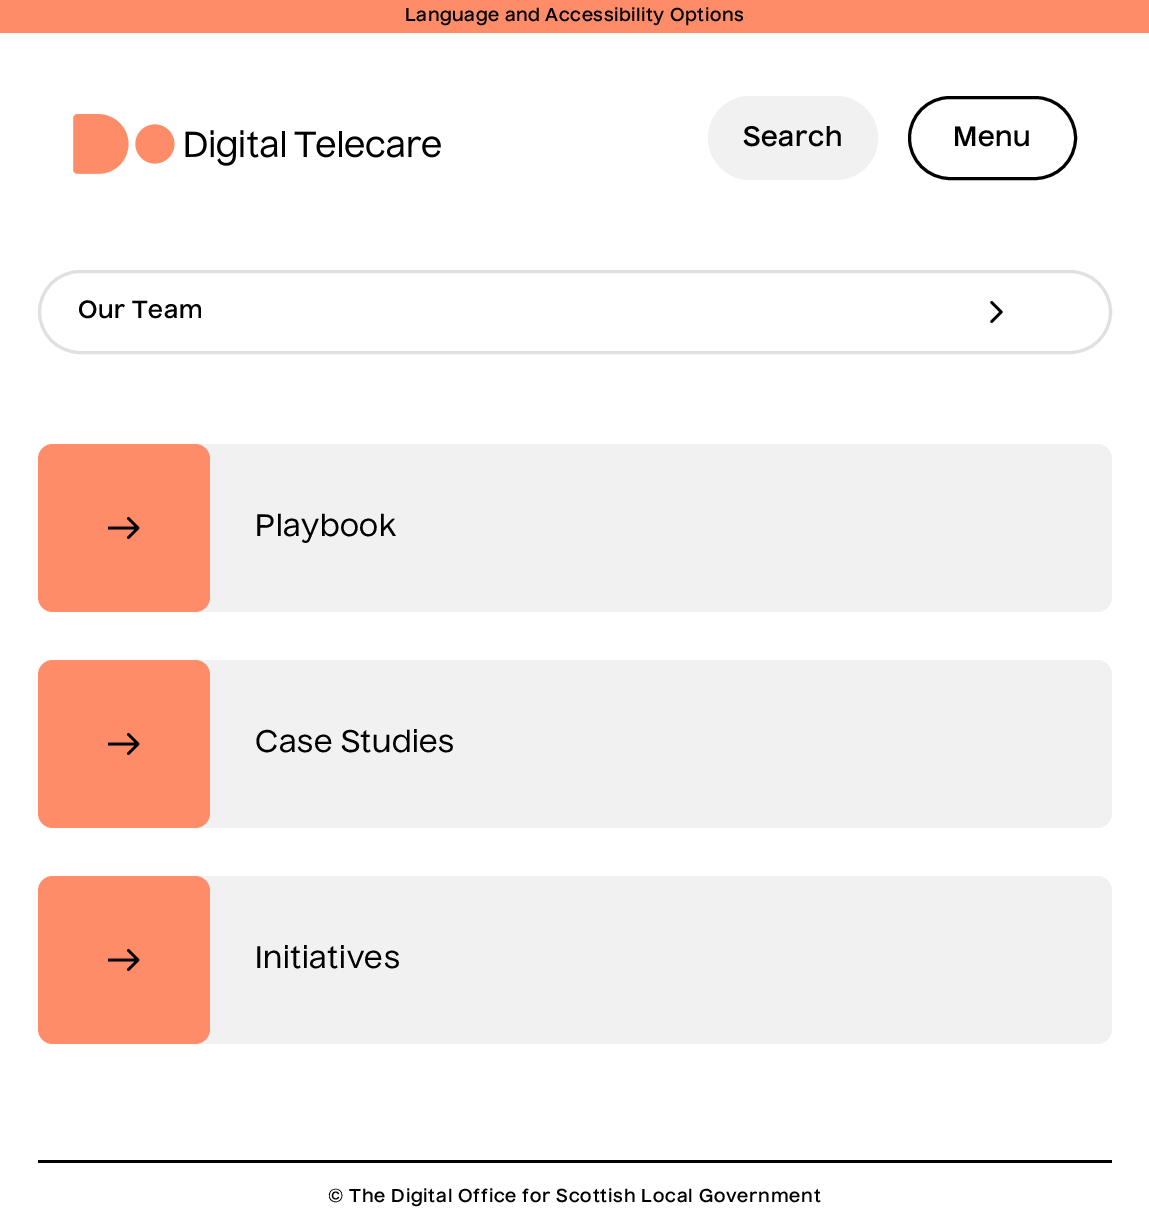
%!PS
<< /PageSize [1149 1231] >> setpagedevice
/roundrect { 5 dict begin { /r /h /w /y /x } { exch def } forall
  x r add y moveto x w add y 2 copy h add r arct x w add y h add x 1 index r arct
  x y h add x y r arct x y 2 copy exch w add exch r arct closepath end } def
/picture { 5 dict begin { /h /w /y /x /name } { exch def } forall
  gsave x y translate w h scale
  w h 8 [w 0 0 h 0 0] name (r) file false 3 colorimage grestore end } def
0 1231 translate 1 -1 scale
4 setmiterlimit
1 setgray
0 0 1149 1231 rectfill
1 0.549 0.412 setrgbcolor
0 0 1149 33 rectfill
/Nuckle-SemiBold [18 0 0 -18 0 0] selectfont
0 setgray
405 21 moveto 0.6 0 (Language and Accessibility Options) ashow
(img1.rgb) 73 114 368 60 picture
0.945 setgray
708 96 170 84 42 roundrect fill
/Nuckle-SemiBold [27 0 0 -27 0 0] selectfont
0 setgray
743 146 moveto 0.6 0 (Search) ashow
3 setlinewidth
909.5 97.5 166 81 40.5 roundrect stroke
953 146 moveto 0.6 0 (Menu) ashow
(img2.rgb) 990 301 13 22 picture
0.878 setgray
39.5 271.5 1071 81 40.5 roundrect stroke
/Nuckle-SemiBold [24 0 0 -24 0 0] selectfont
0 setgray
78 318 moveto 0.6 0 (Our Team) ashow
0.945 setgray
38 444 1074 168 15 roundrect fill
1 0.549 0.412 setrgbcolor
38 444 172 168 15 roundrect fill
(img3.rgb) 108 517 32 22 picture
/Nuckle-Medium [30 0 0 -30 0 0] selectfont
0 setgray
255 536 moveto 0.6 0 (Playbook) ashow
0.945 setgray
38 660 1074 168 15 roundrect fill
1 0.549 0.412 setrgbcolor
38 660 172 168 15 roundrect fill
(img3.rgb) 108 733 32 22 picture
0 setgray
255 752 moveto 0.6 0 (Case Studies) ashow
0.945 setgray
38 876 1074 168 15 roundrect fill
1 0.549 0.412 setrgbcolor
38 876 172 168 15 roundrect fill
(img3.rgb) 108 949 32 22 picture
0 setgray
255 968 moveto 0.6 0 (Initiatives) ashow
38 1160 1074 3 rectfill
/Nuckle-SemiBold [18 0 0 -18 0 0] selectfont
328 1202 moveto 0.85 0 (© The Digital Office for Scottish Local Government) ashow
showpage
